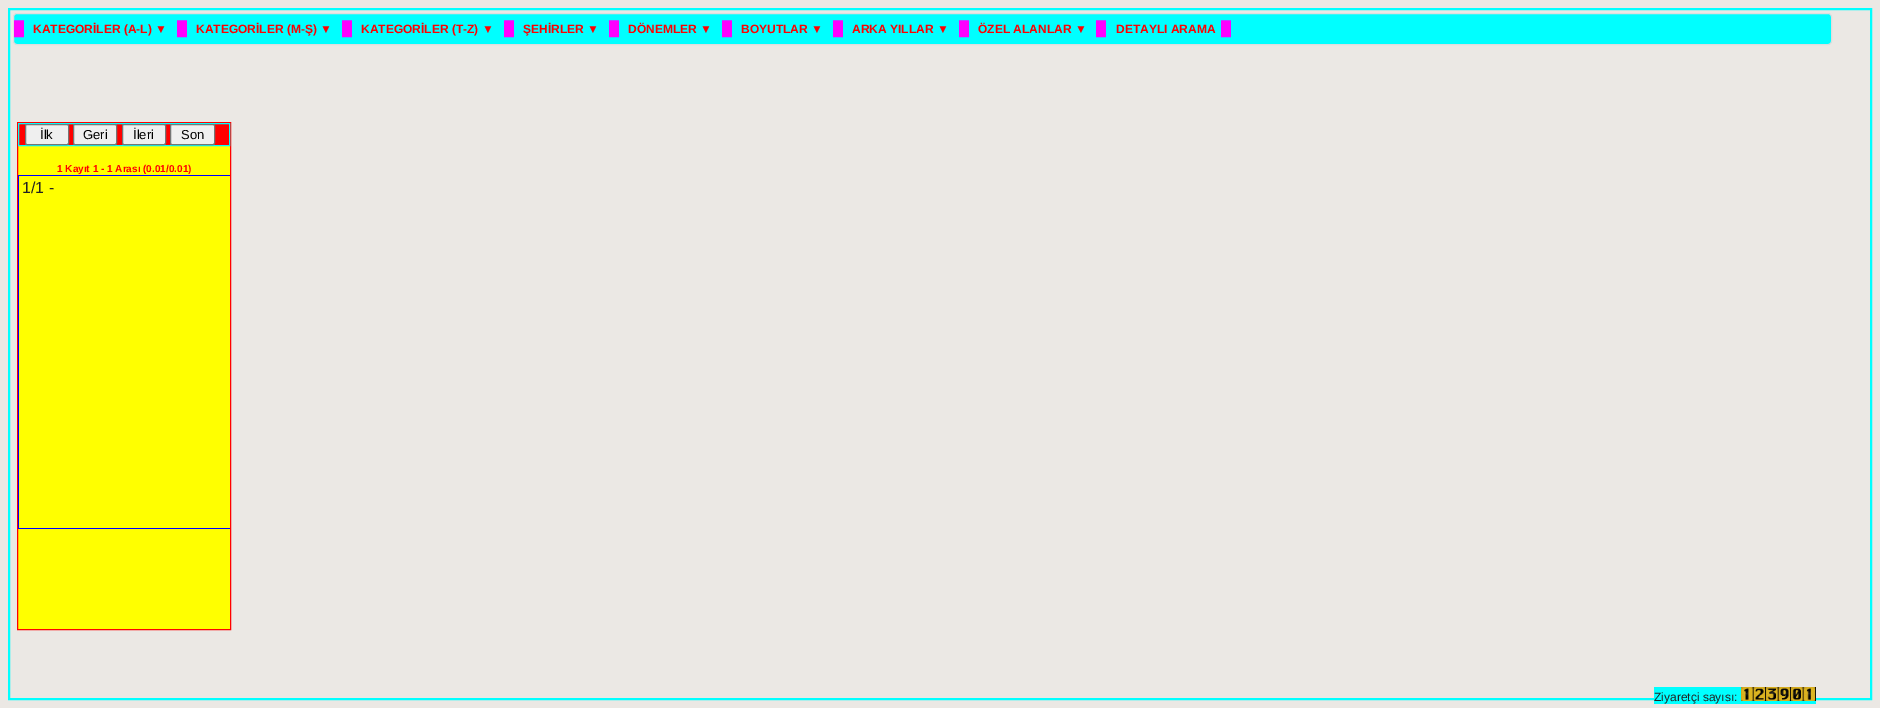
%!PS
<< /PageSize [1880 708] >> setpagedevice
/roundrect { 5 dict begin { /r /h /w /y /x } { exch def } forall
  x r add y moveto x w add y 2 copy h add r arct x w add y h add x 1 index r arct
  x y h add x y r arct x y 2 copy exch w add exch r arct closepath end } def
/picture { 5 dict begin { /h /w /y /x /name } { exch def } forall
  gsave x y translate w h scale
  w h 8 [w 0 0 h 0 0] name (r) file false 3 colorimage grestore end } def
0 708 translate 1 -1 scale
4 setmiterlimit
0.922 0.91 0.894 setrgbcolor
0 0 1880 708 rectfill
0 1 1 setrgbcolor
2 setlinewidth
9 9 1862 690 rectstroke
13.5 13.5 1818 31 3.5 roundrect gsave fill grestore
0.871 setgray
1 setlinewidth
stroke
/LiberationSans-Bold [14 0 0 -14 0 0] selectfont
1 0 1 setrgbcolor
14 33 moveto (█) show
/LiberationSans-Bold [12 0 0 -12 0 0] selectfont
1 0 0 setrgbcolor
33 33 moveto (KATEGORİLER \(A-L\) ▼) show
/LiberationSans-Bold [14 0 0 -14 0 0] selectfont
1 0 1 setrgbcolor
177 33 moveto (█) show
/LiberationSans-Bold [12 0 0 -12 0 0] selectfont
1 0 0 setrgbcolor
196 33 moveto (KATEGORİLER \(M-Ş\) ▼) show
/LiberationSans-Bold [14 0 0 -14 0 0] selectfont
1 0 1 setrgbcolor
342 33 moveto (█) show
/LiberationSans-Bold [12 0 0 -12 0 0] selectfont
1 0 0 setrgbcolor
361 33 moveto (KATEGORİLER \(T-Z\) ▼) show
/LiberationSans-Bold [14 0 0 -14 0 0] selectfont
1 0 1 setrgbcolor
504 33 moveto (█) show
/LiberationSans-Bold [12 0 0 -12 0 0] selectfont
1 0 0 setrgbcolor
523 33 moveto (ŞEHİRLER ▼) show
/LiberationSans-Bold [14 0 0 -14 0 0] selectfont
1 0 1 setrgbcolor
609 33 moveto (█) show
/LiberationSans-Bold [12 0 0 -12 0 0] selectfont
1 0 0 setrgbcolor
628 33 moveto (DÖNEMLER ▼) show
/LiberationSans-Bold [14 0 0 -14 0 0] selectfont
1 0 1 setrgbcolor
722 33 moveto (█) show
/LiberationSans-Bold [12 0 0 -12 0 0] selectfont
1 0 0 setrgbcolor
741 33 moveto (BOYUTLAR ▼) show
/LiberationSans-Bold [14 0 0 -14 0 0] selectfont
1 0 1 setrgbcolor
833 33 moveto (█) show
/LiberationSans-Bold [12 0 0 -12 0 0] selectfont
1 0 0 setrgbcolor
852 33 moveto (ARKA YILLAR ▼) show
/LiberationSans-Bold [14 0 0 -14 0 0] selectfont
1 0 1 setrgbcolor
959 33 moveto (█) show
/LiberationSans-Bold [12 0 0 -12 0 0] selectfont
1 0 0 setrgbcolor
978 33 moveto (ÖZEL ALANLAR ▼) show
/LiberationSans-Bold [14 0 0 -14 0 0] selectfont
1 0 1 setrgbcolor
1096 33 moveto (█) show
/LiberationSans-Bold [12 0 0 -12 0 0] selectfont
1 0 0 setrgbcolor
1116 33 moveto (DETAYLI ARAMA) show
/LiberationSans-Bold [14 0 0 -14 0 0] selectfont
1 0 1 setrgbcolor
1221 33 moveto (█) show
1 1 0 setrgbcolor
18 146 212 483 rectfill
1 0 0 setrgbcolor
17.5 122.5 213 507 rectstroke
newpath 18.5 123.5 moveto 229.5 123.5 lineto 229.5 145.5 lineto 18.5 145.5 lineto closepath gsave fill grestore
0 1 1 setrgbcolor
stroke
0.937 setgray
25.5 124.5 43 20 1.5 roundrect gsave fill grestore
0.463 setgray
stroke
/LiberationSans-Regular [13 0 0 -13 0 0] selectfont
0 setgray
40 139 moveto (İlk) show
0.937 setgray
73.5 124.5 43 20 1.5 roundrect gsave fill grestore
0.463 setgray
stroke
0 setgray
83 139 moveto (Geri) show
0.937 setgray
122.5 124.5 43 20 1.5 roundrect gsave fill grestore
0.463 setgray
stroke
0 setgray
133 139 moveto (İleri) show
0.937 setgray
170.5 124.5 44 20 1.5 roundrect gsave fill grestore
0.463 setgray
stroke
0 setgray
181 139 moveto (Son) show
/LiberationSans-Bold [10 0 0 -10 0 0] selectfont
1 0 0 setrgbcolor
57 172 moveto (1 Kayıt 1 - 1 Arası \(0.01/0.01\)) show
0 0 1 setrgbcolor
18 175 212 1 rectfill
18 528 212 1 rectfill
18 175 1 354 rectfill
/LiberationSans-Regular [16 0 0 -16 0 0] selectfont
0.133 setgray
22 193 moveto (1/1 -) show
0 1 1 setrgbcolor
1654 687 162 17 rectfill
/LiberationSans-Regular [12 0 0 -12 0 0] selectfont
0.133 setgray
1654 701 moveto (Ziyaretçi sayısı:) show
(img1.rgb) 1741 687 75 14 picture
showpage
